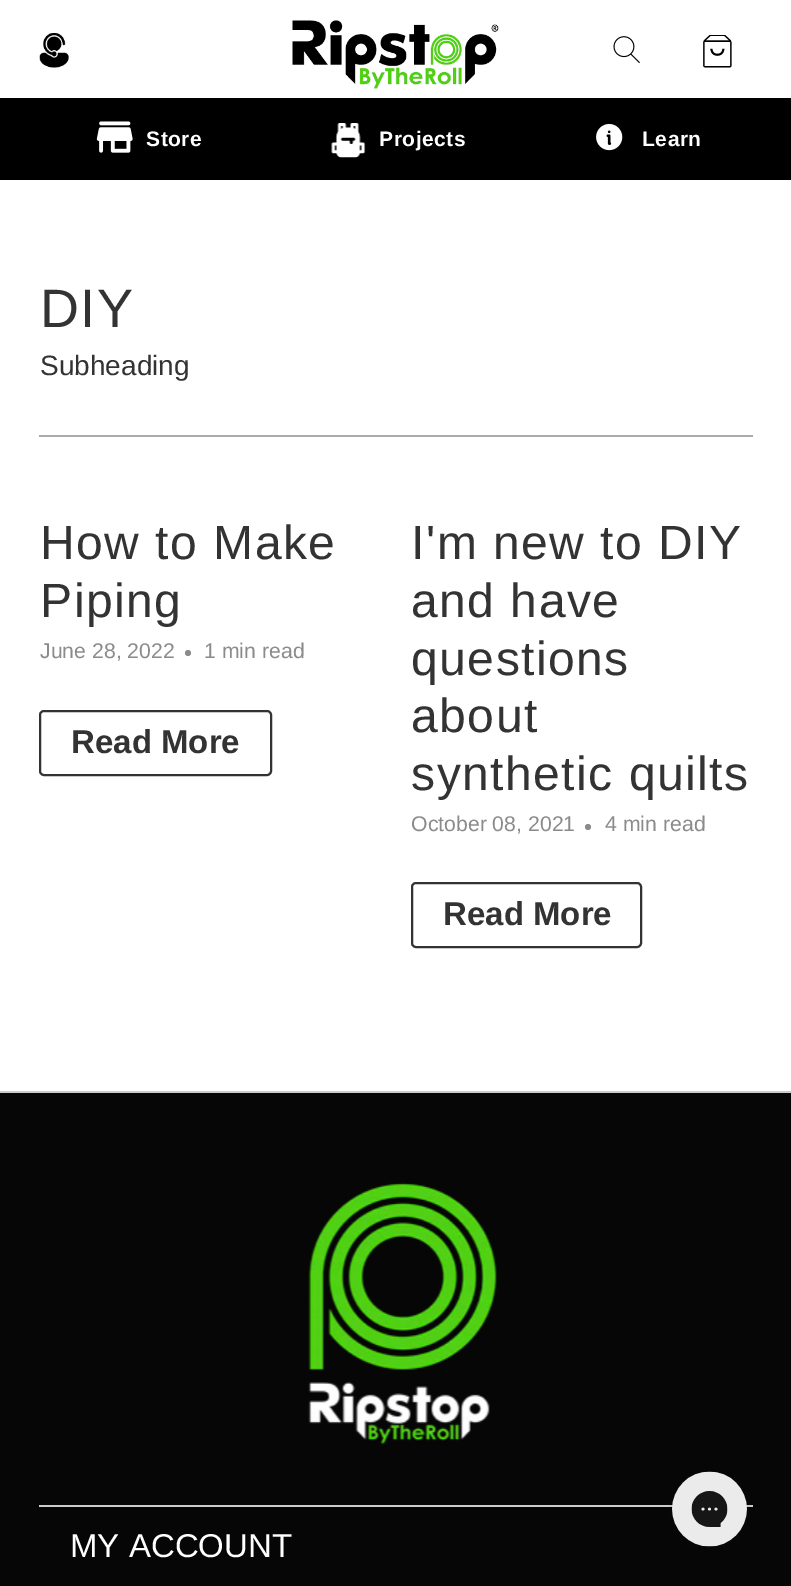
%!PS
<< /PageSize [791 1586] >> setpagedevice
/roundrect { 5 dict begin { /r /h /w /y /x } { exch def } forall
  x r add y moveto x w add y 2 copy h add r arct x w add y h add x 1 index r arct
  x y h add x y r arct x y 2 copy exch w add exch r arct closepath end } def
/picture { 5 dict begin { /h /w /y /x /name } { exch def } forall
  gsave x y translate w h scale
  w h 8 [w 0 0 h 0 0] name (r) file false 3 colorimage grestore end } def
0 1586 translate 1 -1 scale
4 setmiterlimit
1 setgray
0 0 791 1586 rectfill
(img1.rgb) 39 33 30 35 picture
(img2.rgb) 292 20 207 69 picture
(img3.rgb) 613 36 27 28 picture
(img4.rgb) 703 35 29 33 picture
0 setgray
0 98 791 82 rectfill
(img5.rgb) 96 121 37 32 picture
/LiberationSans-Bold [21 0 0 -21 0 0] selectfont
1 setgray
146 146 moveto 0.5 0 (Store) ashow
(img6.rgb) 331 123 35 35 picture
379 146 moveto 0.5 0 (Projects) ashow
(img7.rgb) 596 123 27 28 picture
642 146 moveto 0.5 0 (Learn) ashow
/LiberationSans-Regular [54 0 0 -54 0 0] selectfont
0.2 setgray
40 327 moveto 1.5 0 (DIY) ashow
/LiberationSans-Regular [28 0 0 -28 0 0] selectfont
40 375 moveto (Subheading) show
0.667 setgray
39 435 714 2 rectfill
/LiberationSans-Regular [48 0 0 -48 0 0] selectfont
0.2 setgray
40 559 moveto 1.5 0 (How to Make) ashow
40 617 moveto 1.5 0 (Piping) ashow
/LiberationSans-Regular [21.25 0 0 -21.25 0 0] selectfont
0.549 0.545 0.545 setrgbcolor
40 658 moveto (June 28, 2022) show
newpath 188 653 3 0 360 arc closepath fill
204 658 moveto (1 min read) show
0.2 setgray
2 setlinewidth
40 711 231 64 4 roundrect stroke
/LiberationSans-Bold [33 0 0 -33 0 0] selectfont
71 753 moveto (Read More) show
/LiberationSans-Regular [48 0 0 -48 0 0] selectfont
411 559 moveto 1.5 0 (I'm new to DIY) ashow
411 617 moveto 1.5 0 (and have) ashow
411 675 moveto 1.5 0 (questions) ashow
411 732 moveto 1.5 0 (about) ashow
411 790 moveto 1.5 0 (synthetic quilts) ashow
/LiberationSans-Regular [21.25 0 0 -21.25 0 0] selectfont
0.549 0.545 0.545 setrgbcolor
411 831 moveto (October 08, 2021) show
newpath 588 827 3 0 360 arc closepath fill
605 831 moveto (4 min read) show
0.2 setgray
412 883 229 64 4 roundrect stroke
/LiberationSans-Bold [33 0 0 -33 0 0] selectfont
443 925 moveto (Read More) show
0.024 setgray
0 1093 791 493 rectfill
0.8 setgray
0 1091 791 2 rectfill
(img8.rgb) 308 1182 189 262 picture
39 1505 714 2 rectfill
/LiberationSans-Regular [33 0 0 -33 0 0] selectfont
1 setgray
70 1557 moveto (MY ACCOUNT) show
(img9.rgb) 669 1471 81 76 picture
showpage
